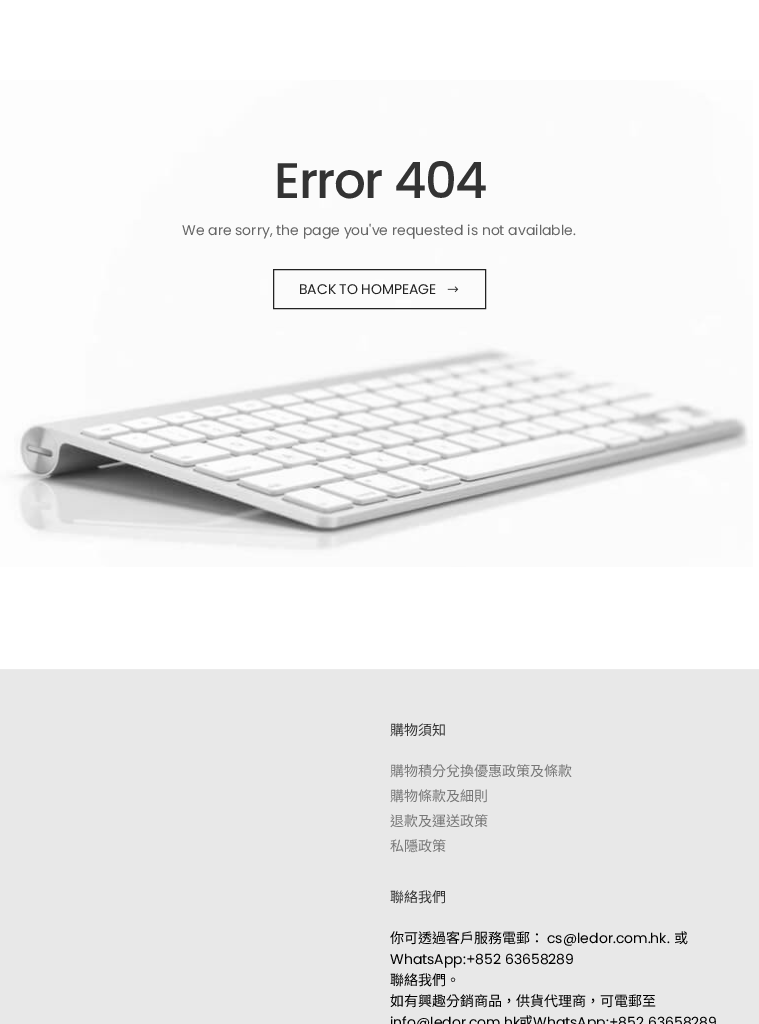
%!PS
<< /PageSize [759 1024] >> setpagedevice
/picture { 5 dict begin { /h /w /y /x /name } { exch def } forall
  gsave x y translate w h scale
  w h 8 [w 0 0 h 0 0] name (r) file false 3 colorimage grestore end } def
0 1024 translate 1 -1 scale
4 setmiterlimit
1 setgray
0 0 759 1024 rectfill
(img1.rgb) 0 80 753 487 picture
/Poppins-Medium [50 0 0 -50 0 0] selectfont
0.2 setgray
274 198 moveto -1.5 0 (Error 404) ashow
/Poppins-Regular [14 0 0 -14 0 0] selectfont
0.4 setgray
182 235 moveto (We are sorry, the page you've requested is not available.) show
0.133 setgray
273.5 269.5 212 39 rectstroke
299 294 moveto -0.1 0 (BACK TO HOMPEAGE) ashow
(img2.rgb) 447 286 12 7 picture
0.91 setgray
0 670 759 354 rectfill
0.922 setgray
0 669 759 1 rectfill
/NotoSansCJKTC-Regular [14 0 0 -14 0 0] selectfont
0.2 setgray
390 735 moveto (購物須知) show
0.467 setgray
390 776 moveto (購物積分兌換優惠政策及條款) show
390 801 moveto (購物條款及細則) show
390 826 moveto (退款及運送政策) show
390 851 moveto (私隱政策) show
0.2 setgray
390 902 moveto (聯絡我們) show
0 setgray
390 943 moveto (你可透過客戶服務電郵：) show
/Poppins-Regular [14 0 0 -14 0 0] selectfont
547 943 moveto (cs@ledor.com.hk.) show
/NotoSansCJKTC-Regular [14 0 0 -14 0 0] selectfont
674 943 moveto (或) show
/Poppins-Regular [14 0 0 -14 0 0] selectfont
390 964 moveto (WhatsApp:+852 63658289) show
/NotoSansCJKTC-Regular [14 0 0 -14 0 0] selectfont
390 985 moveto (聯絡我們。) show
390 1006 moveto (如有興趣分銷商品，供貨代理商，可電郵至) show
/Poppins-Regular [14 0 0 -14 0 0] selectfont
390 1027 moveto (info@ledor.com.hk) show
/NotoSansCJKTC-Regular [14 0 0 -14 0 0] selectfont
519 1027 moveto (或) show
/Poppins-Regular [14 0 0 -14 0 0] selectfont
533 1027 moveto (WhatsApp:+852 63658289) show
showpage
